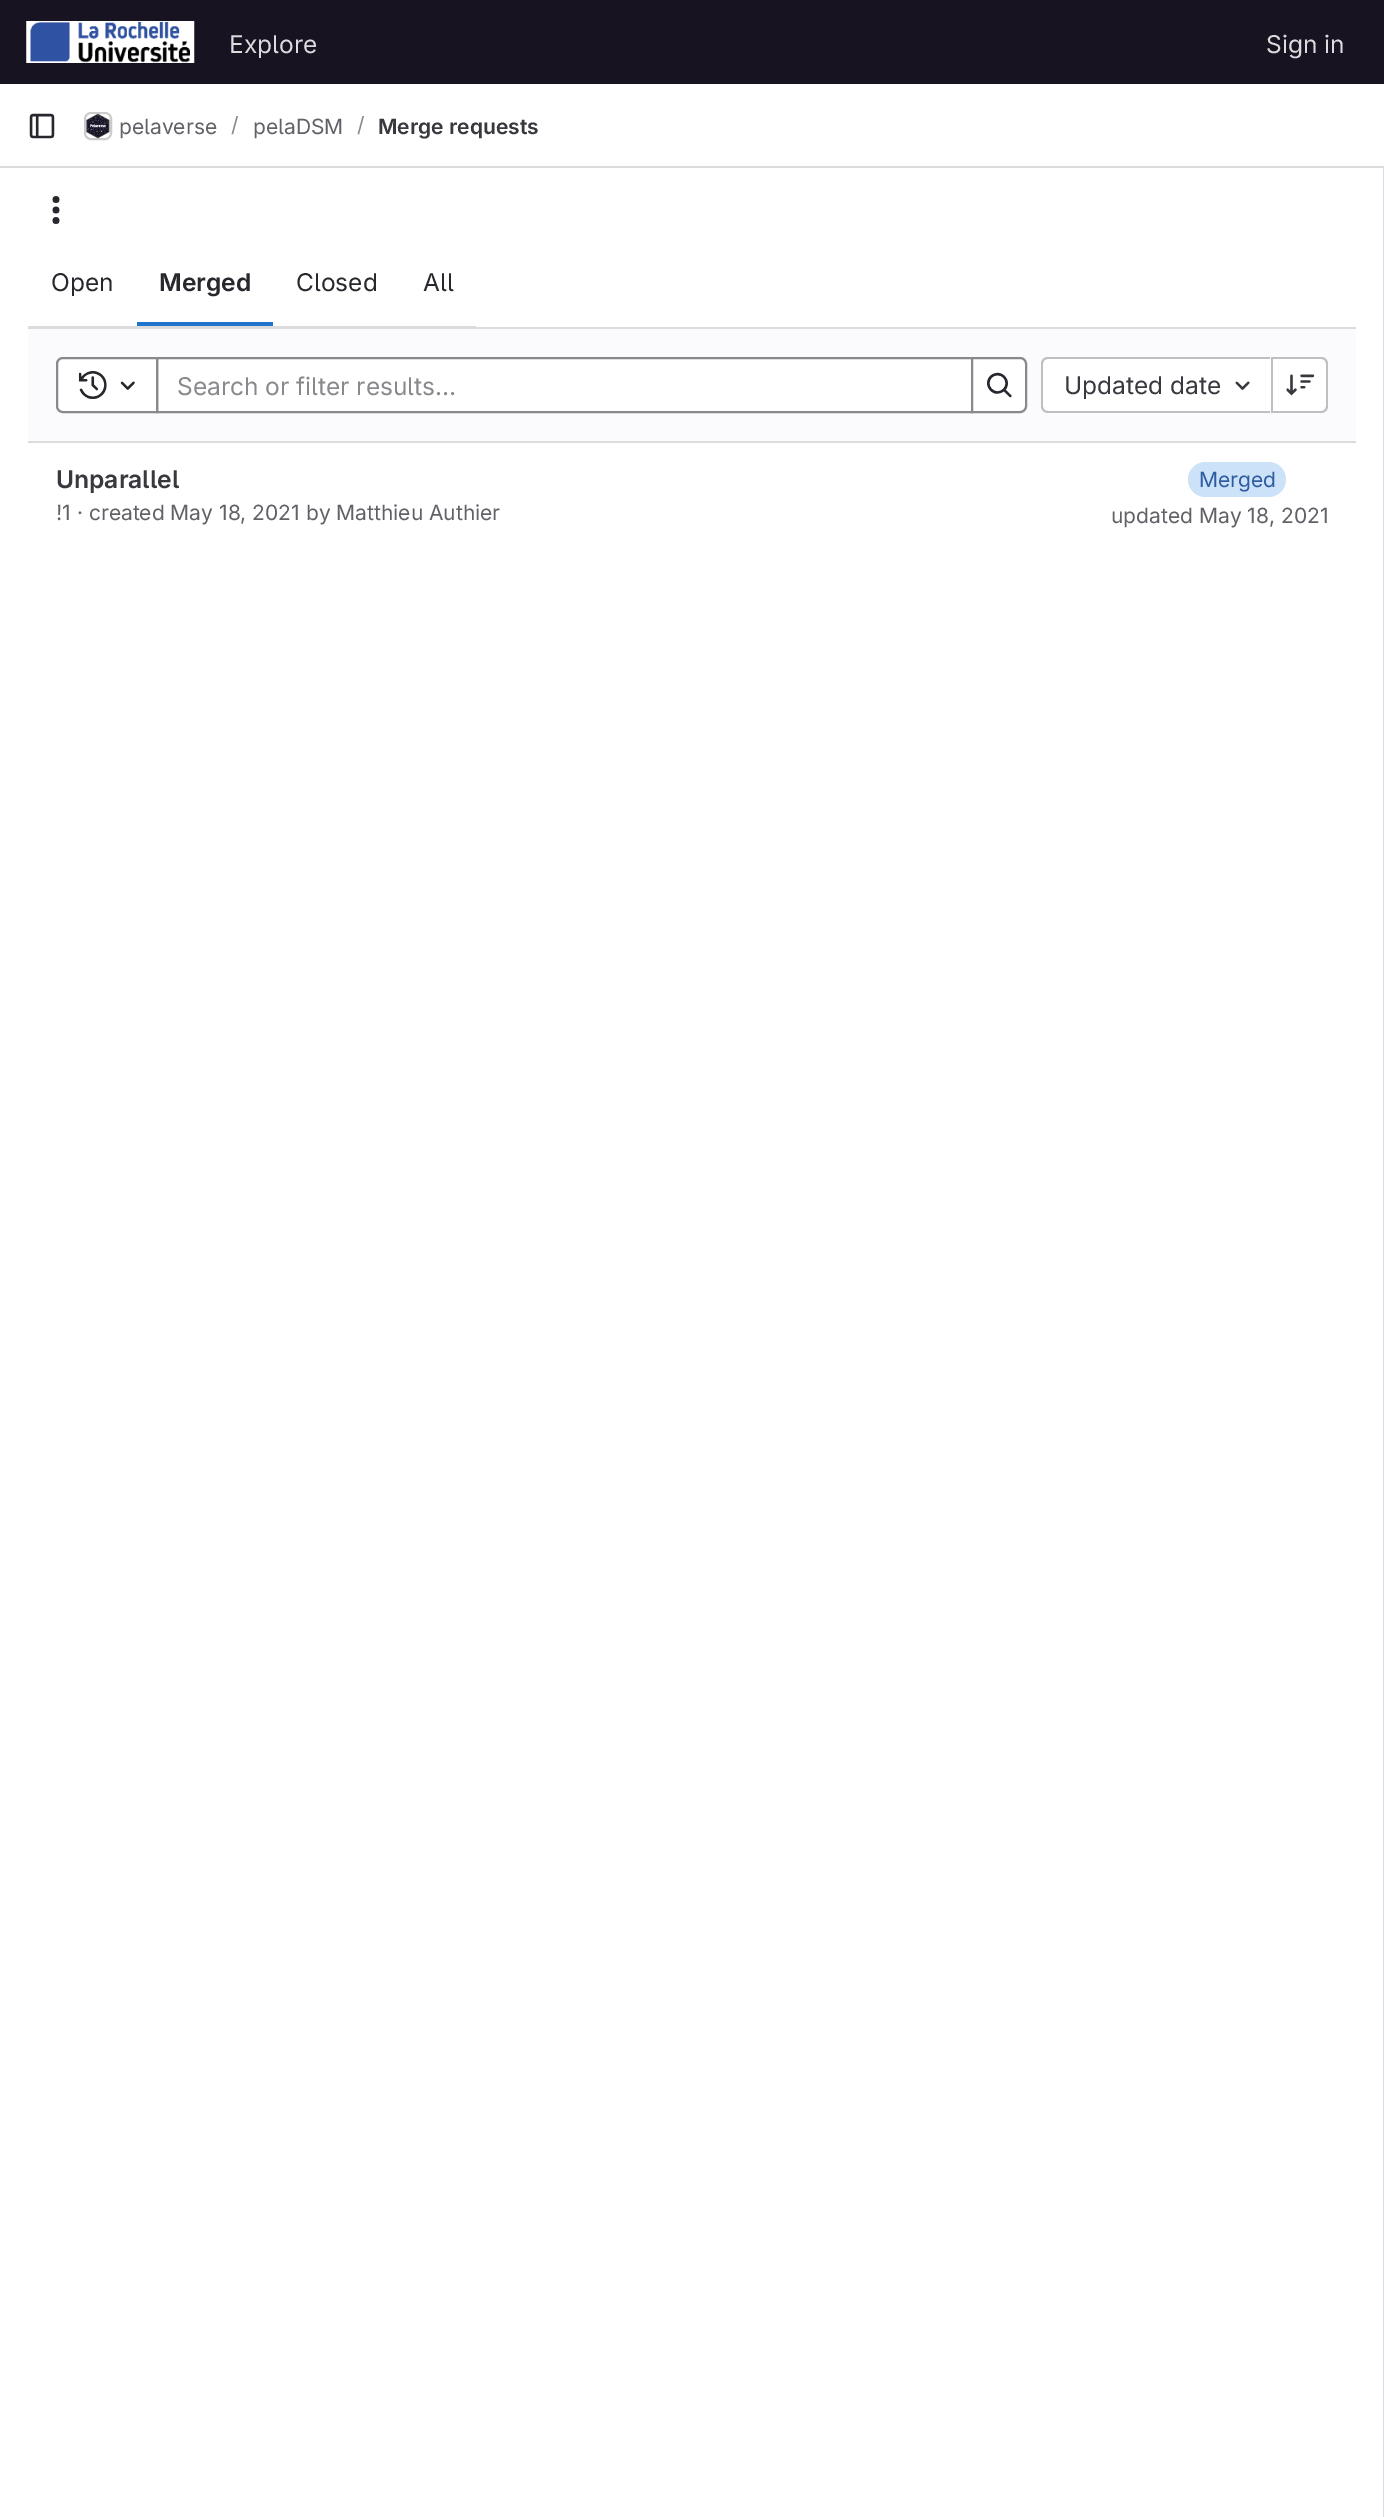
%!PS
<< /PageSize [1384 2517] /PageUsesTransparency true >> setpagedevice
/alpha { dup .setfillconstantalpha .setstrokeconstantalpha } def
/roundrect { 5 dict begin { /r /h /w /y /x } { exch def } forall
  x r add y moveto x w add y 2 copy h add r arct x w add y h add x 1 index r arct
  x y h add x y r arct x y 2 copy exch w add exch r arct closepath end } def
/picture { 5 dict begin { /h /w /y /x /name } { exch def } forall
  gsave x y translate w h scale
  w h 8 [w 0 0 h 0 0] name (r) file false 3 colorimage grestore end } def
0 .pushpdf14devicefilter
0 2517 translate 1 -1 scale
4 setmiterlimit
1 setgray
0 0 1384 2517 rectfill
0.09 0.075 0.129 setrgbcolor
0 0 1384 84 rectfill
(img1.rgb) 26 21 169 42 picture
/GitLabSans-Regular [24.5 0 0 -24.5 0 0] selectfont
0.863 0.863 0.871 setrgbcolor
229 53 moveto (Explore) show
1266 53 moveto (Sign in) show
0 166 1384 2 rectfill
(img2.rgb) 29 113 26 26 picture
2 setlinewidth
85 113 26 26 6 roundrect stroke
(img3.rgb) 86 113 24 26 picture
0.08 alpha
0.02 0.02 0.024 setrgbcolor
85 113 26 26 6 roundrect stroke
/GitLabSans-Regular [21 0 0 -21 0 0] selectfont
1 alpha
0.384 0.38 0.408 setrgbcolor
119 134 moveto (pelaverse) show
0.537 0.533 0.553 setrgbcolor
231 132 moveto (/) show
0.384 0.38 0.408 setrgbcolor
253 134 moveto (pelaDSM) show
0.537 0.533 0.553 setrgbcolor
357 132 moveto (/) show
/GitLabSans-SemiBold [21 0 0 -21 0 0] selectfont
0.227 0.22 0.247 setrgbcolor
378 134 moveto (Merge requests) show
0.863 0.863 0.871 setrgbcolor
28 327 1328 2 rectfill
(img4.rgb) 52 196 8 28 picture
28 326 448 1 rectfill
/GitLabSans-Regular [24.5 0 0 -24.5 0 0] selectfont
0.157 0.153 0.176 setrgbcolor
51 291 moveto (Open) show
/GitLabSans-SemiBold [24.5 0 0 -24.5 0 0] selectfont
159 291 moveto (Merged) show
0.122 0.459 0.796 setrgbcolor
137 322 136 4 rectfill
/GitLabSans-Regular [24.5 0 0 -24.5 0 0] selectfont
0.157 0.153 0.176 setrgbcolor
296 291 moveto (Closed) show
423 291 moveto (All) show
0.863 0.863 0.871 setrgbcolor
1383 168 1 2349 rectfill
0.984 0.98 0.992 setrgbcolor
28 329 1328 112 rectfill
0.863 0.863 0.871 setrgbcolor
28 441 1328 2 rectfill
1 setgray
newpath 157 358 moveto 972 358 lineto 972 412 lineto 157 412 lineto closepath gsave fill grestore
0.537 0.533 0.553 setrgbcolor
stroke
1 setgray
newpath 63 358 moveto 157 358 lineto 157 412 lineto 63 412 lineto 59.5 412 57 409.5 57 406 curveto 57 364 lineto 57 360.5 59.5 358 63 358 curveto closepath gsave fill grestore
0.537 0.533 0.553 setrgbcolor
stroke
(img5.rgb) 78 371 29 28 picture
(img6.rgb) 120 381 15 9 picture
177 395 moveto (Search or filter results…) show
1 setgray
newpath 972 358 moveto 1020 358 lineto 1023.5 358 1026 360.5 1026 364 curveto 1026 406 lineto 1026 409.5 1023.5 412 1020 412 curveto 972 412 lineto closepath gsave fill grestore
0.537 0.533 0.553 setrgbcolor
stroke
(img7.rgb) 987 372 25 26 picture
1 setgray
newpath 1048 359 moveto 1271 359 lineto 1271 411 lineto 1048 411 lineto 1045 411 1043 409 1043 406 curveto 1043 364 lineto 1043 361 1045 359 1048 359 curveto closepath fill
0.749 0.749 0.765 setrgbcolor
newpath 1048 357 moveto 1270 357 lineto 1270 413 lineto 1048 413 lineto 1044 413 1041 410 1041 406 curveto 1041 364 lineto 1041 360 1044 357 1048 357 curveto closepath 1048 359 moveto 1270 359 lineto 1270 411 lineto 1048 411 lineto 1045 411 1043 409 1043 406 curveto 1043 364 lineto 1043 361 1045 359 1048 359 curveto closepath eofill
0.227 0.22 0.247 setrgbcolor
1064 394 moveto (Updated date) show
(img8.rgb) 1235 381 15 9 picture
1 setgray
newpath 1272 359 moveto 1322 359 lineto 1325 359 1327 361 1327 364 curveto 1327 406 lineto 1327 409 1325 411 1322 411 curveto 1272 411 lineto closepath fill
0.749 0.749 0.765 setrgbcolor
newpath 1272 357 moveto 1321 357 lineto 1325 357 1328 360 1328 364 curveto 1328 406 lineto 1328 410 1325 413 1321 413 curveto 1272 413 lineto closepath 1272 359 moveto 1321 359 lineto 1324 359 1326 361 1326 364 curveto 1326 406 lineto 1326 409 1324 411 1321 411 curveto 1272 411 lineto closepath eofill
1271 357 2 56 rectfill
(img9.rgb) 1286 374 29 22 picture
/GitLabSans-SemiBold [24.5 0 0 -24.5 0 0] selectfont
0.227 0.22 0.247 setrgbcolor
56 488 moveto (Unparallel) show
/GitLabSans-Regular [21 0 0 -21 0 0] selectfont
0.384 0.38 0.408 setrgbcolor
56 520 moveto (!1 · created May 18, 2021 by Matthieu Authier) show
0.796 0.886 0.976 setrgbcolor
1188 462 98 35 17.5 roundrect fill
0.184 0.361 0.627 setrgbcolor
1199 487 moveto (Merged) show
0.384 0.38 0.408 setrgbcolor
1111 523 moveto (updated May 18, 2021) show
.poppdf14devicefilter showpage
